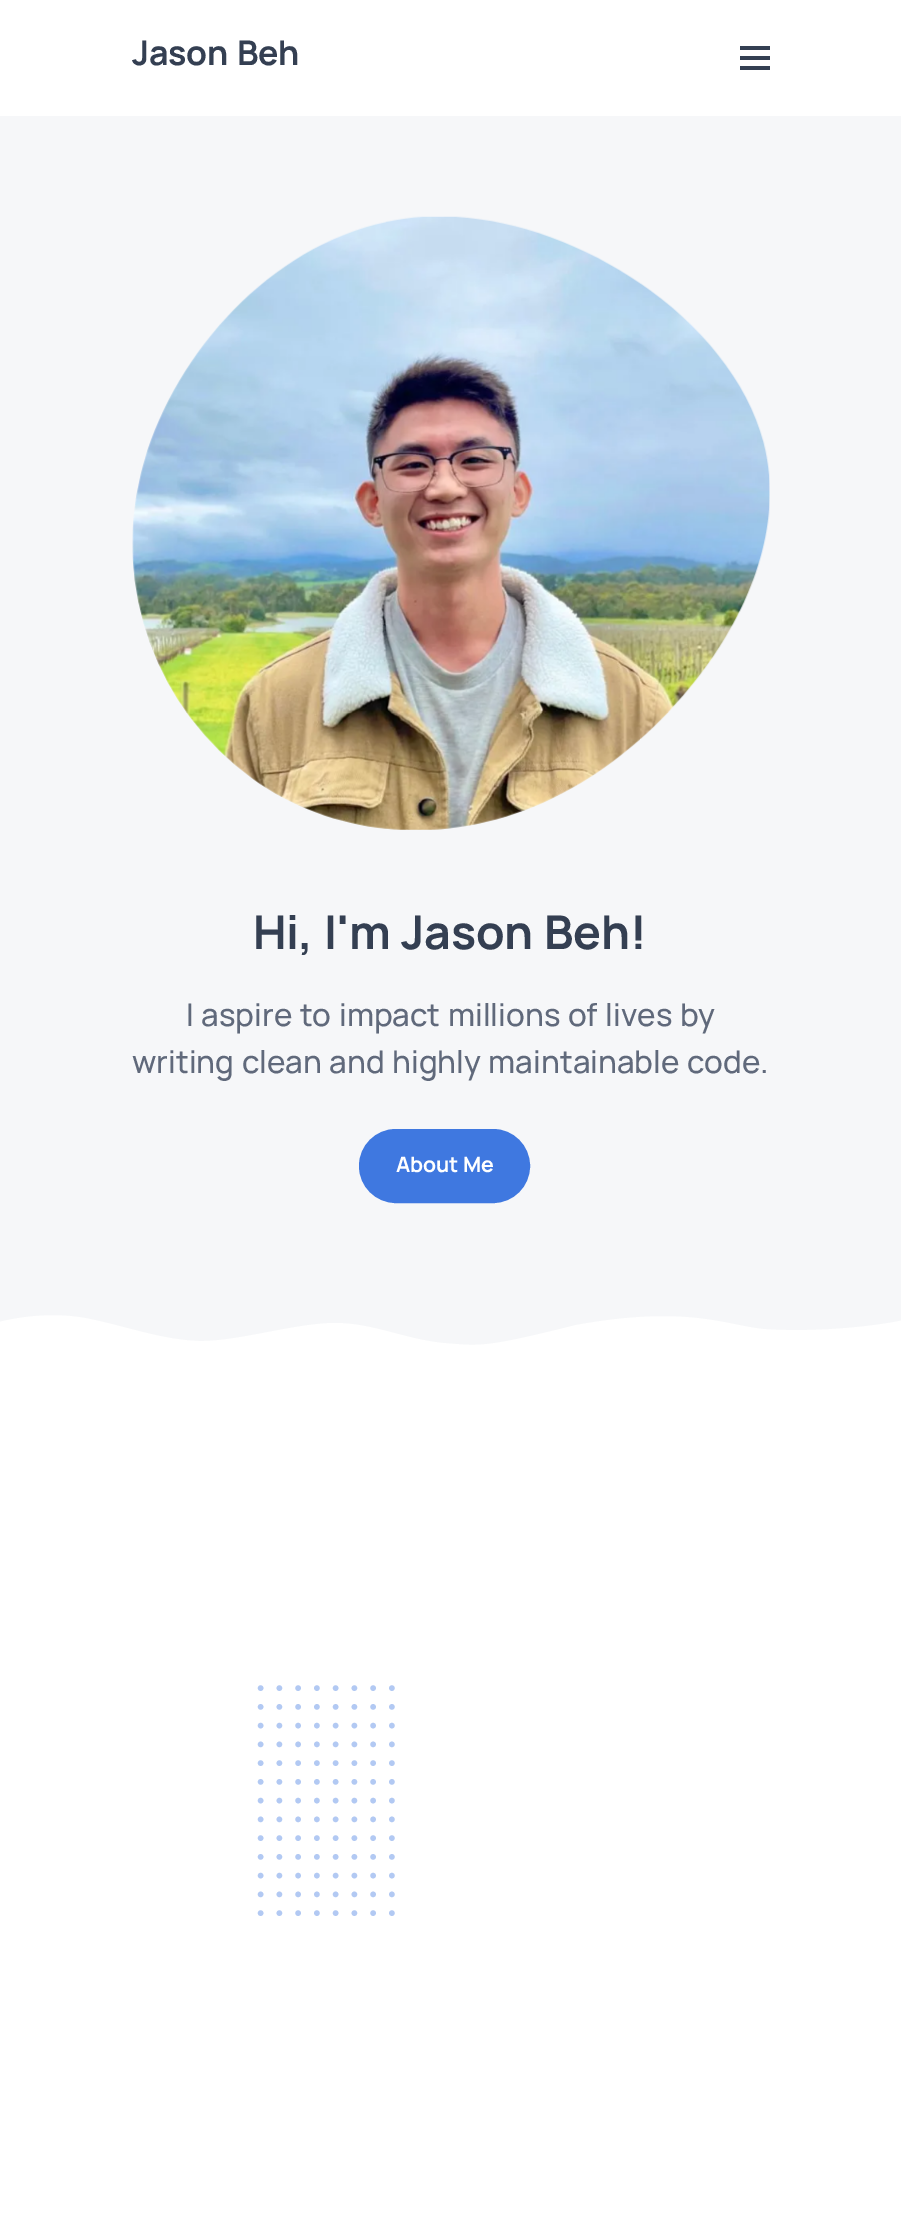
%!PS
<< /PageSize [901 2215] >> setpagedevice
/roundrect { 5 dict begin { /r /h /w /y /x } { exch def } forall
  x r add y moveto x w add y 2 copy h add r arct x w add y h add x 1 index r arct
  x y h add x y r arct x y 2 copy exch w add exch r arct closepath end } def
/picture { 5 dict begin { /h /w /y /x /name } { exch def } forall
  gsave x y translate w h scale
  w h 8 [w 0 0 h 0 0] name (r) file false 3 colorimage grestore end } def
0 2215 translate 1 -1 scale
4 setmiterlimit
1 setgray
0 0 901 2215 rectfill
/Manrope-Bold [34 0 0 -34 0 0] selectfont
0.204 0.247 0.322 setrgbcolor
132 65 moveto 2 0 32 -0.25 0 (Jason Beh) awidthshow
740 46 30 4 rectfill
740 56 30 4 rectfill
740 66 30 4 rectfill
0.965 0.969 0.976 setrgbcolor
0 116 901 1229 rectfill
(img1.rgb) 132 216 638 614 picture
/Manrope-Bold [46.5 0 0 -46.5 0 0] selectfont
0.204 0.247 0.322 setrgbcolor
253 949 moveto 2 0 32 -0.25 0 (Hi, I'm Jason Beh!) awidthshow
/Manrope-Medium [31.25 0 0 -31.25 0 0] selectfont
0.376 0.412 0.482 setrgbcolor
186 1026 moveto 1.25 0 32 (I aspire to impact millions of lives by) widthshow
132 1073 moveto 1.25 0 32 (writing clean and highly maintainable code.) widthshow
0.247 0.471 0.878 setrgbcolor
360.5 1130.5 168 71 35.5 roundrect gsave fill grestore
3 setlinewidth
stroke
/Manrope-Bold [21.25 0 0 -21.25 0 0] selectfont
1 setgray
396 1172 moveto 1.25 0 32 -0.25 0 (About Me) awidthshow
newpath 763 1329 moveto 725 1325 687 1305 576 1325 curveto 484 1348 481 1346 443 1343 curveto 404 1339 373 1323 335 1323 curveto 296 1323 240 1341 202 1341 curveto 163 1341 123 1325 85 1318 curveto 46 1311 7 1319 -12 1325 curveto -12 1374 lineto 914 1374 lineto 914 1318 lineto 894 1322 lineto 855 1329 802 1332 763 1329 curveto closepath fill
0.698 0.788 0.953 setrgbcolor
5.6 setlinewidth
1 setlinecap
[0 18.75] 0 setdash
newpath 260.6 1688.1 moveto 260.6 1913.4 lineto stroke
newpath 279.4 1688.1 moveto 279.4 1913.4 lineto stroke
newpath 298.1 1688.1 moveto 298.1 1913.4 lineto stroke
newpath 316.9 1688.1 moveto 316.9 1913.4 lineto stroke
newpath 335.6 1688.1 moveto 335.6 1913.4 lineto stroke
newpath 354.4 1688.1 moveto 354.4 1913.4 lineto stroke
newpath 373.1 1688.1 moveto 373.1 1913.4 lineto stroke
newpath 391.9 1688.1 moveto 391.9 1913.4 lineto stroke
showpage
